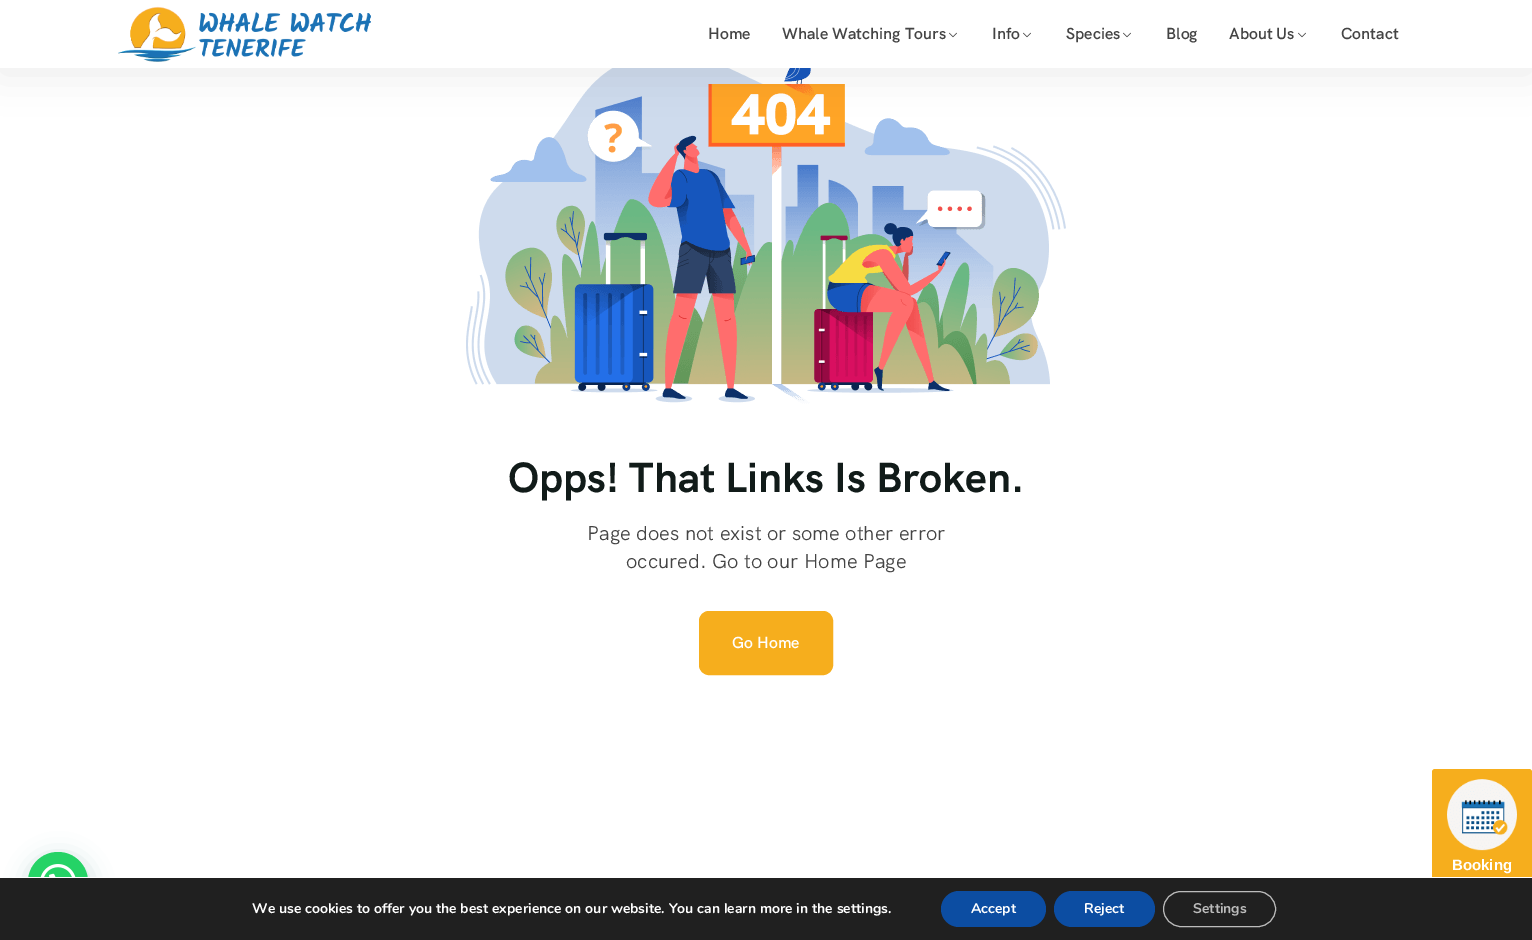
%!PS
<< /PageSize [1532 940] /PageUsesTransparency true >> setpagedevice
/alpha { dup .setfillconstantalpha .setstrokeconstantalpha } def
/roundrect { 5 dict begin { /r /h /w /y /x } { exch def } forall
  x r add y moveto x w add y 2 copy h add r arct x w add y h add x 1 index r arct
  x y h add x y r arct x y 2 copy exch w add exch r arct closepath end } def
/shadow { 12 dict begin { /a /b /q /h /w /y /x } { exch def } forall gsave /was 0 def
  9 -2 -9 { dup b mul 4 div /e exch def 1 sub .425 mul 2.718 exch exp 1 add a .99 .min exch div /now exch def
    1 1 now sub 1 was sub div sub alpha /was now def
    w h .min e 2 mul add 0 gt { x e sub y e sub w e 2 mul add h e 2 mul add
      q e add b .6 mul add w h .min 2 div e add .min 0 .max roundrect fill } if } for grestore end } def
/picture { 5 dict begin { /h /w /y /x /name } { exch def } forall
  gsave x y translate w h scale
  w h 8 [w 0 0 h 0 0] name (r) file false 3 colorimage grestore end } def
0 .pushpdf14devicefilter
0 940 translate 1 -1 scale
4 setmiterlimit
1 setgray
0 0 1532 940 rectfill
0.027 0.369 0.329 setrgbcolor
29 858 60 60 30 12 0.24 shadow
0.145 0.827 0.4 setrgbcolor
newpath 58 882 30 0 360 arc closepath fill
(img1.rgb) 40 864 36 13 picture
(img5.rgb) 466 68 600 336 picture
0 setgray
0 4 1532 68 0 20 0.08 shadow
1 setgray
0 0 1532 68 rectfill
(img2.rgb) 118 6 253 56 picture
/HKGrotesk-SemiBold [16 0 0 -16 0 0] selectfont
0.267 setgray
708 39 moveto (Home) show
782 39 moveto (Whale Watching Tours) show
(img3.rgb) 949 32 8 6 picture
992 39 moveto (Info) show
(img3.rgb) 1023 32 8 6 picture
1066 39 moveto (Species) show
(img3.rgb) 1123 32 8 6 picture
1166 39 moveto (Blog) show
1229 39 moveto (About Us) show
(img3.rgb) 1298 32 8 6 picture
1341 39 moveto (Contact) show
0.965 0.682 0.114 setrgbcolor
1432 769 100 116 3 roundrect fill
(img4.rgb) 1447 779 70 72 picture
/LiberationSans-Bold [15 0 0 -15 0 0] selectfont
1 setgray
1452 870 moveto (Booking) show
/HKGrotesk-Bold [42 0 0 -42 0 0] selectfont
0.067 0.106 0.098 setrgbcolor
508 492 moveto (Opps! That Links Is Broken.) show
/HKGrotesk-Regular [20 0 0 -20 0 0] selectfont
0.267 setgray
587 540 moveto (Page does not exist or some other error) show
626 568 moveto (occured. Go to our Home Page) show
0.965 0.682 0.114 setrgbcolor
699.5 611.5 133 63 9.5 roundrect gsave fill grestore
stroke
/HKGrotesk-SemiBold [16 0 0 -16 0 0] selectfont
1 setgray
732 648 moveto (Go Home) show
0.125 setgray
0 878 1532 62 rectfill
1 setgray
12 877 1520 1 rectfill
/Nunito-Bold [14 0 0 -14 0 0] selectfont
252 913 moveto (We use cookies to offer you the best experience on our website. You can learn more in the settings.) show
0.047 0.302 0.635 setrgbcolor
941 891 105 36 18 roundrect fill
1 setgray
971 913 moveto (Accept) show
0.047 0.302 0.635 setrgbcolor
1054 891 101 36 18 roundrect fill
1 setgray
1084 913 moveto (Reject) show
0.737 setgray
1163.5 891.5 112 35 17.5 roundrect stroke
1193 913 moveto (Settings) show
.poppdf14devicefilter showpage
